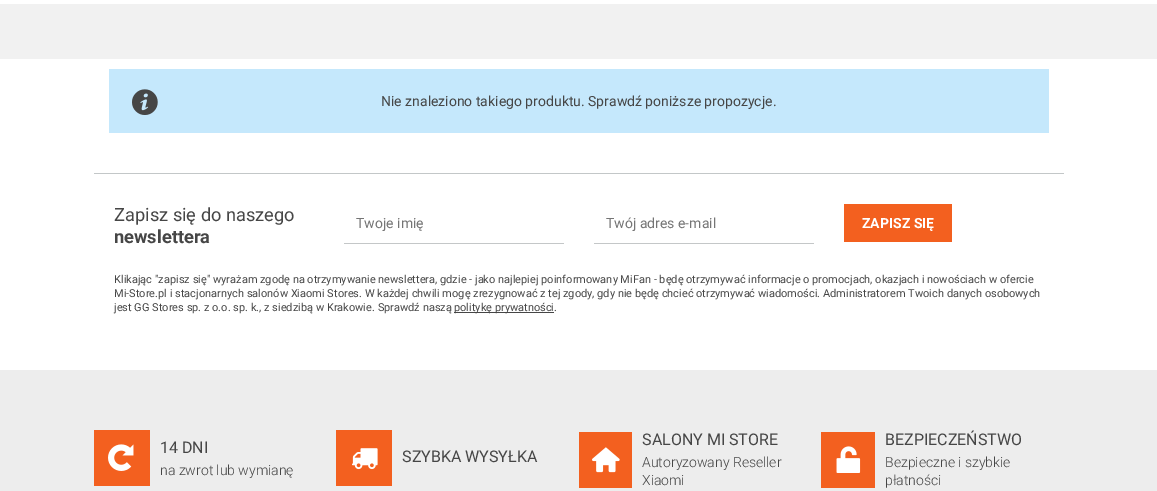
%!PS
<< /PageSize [1157 491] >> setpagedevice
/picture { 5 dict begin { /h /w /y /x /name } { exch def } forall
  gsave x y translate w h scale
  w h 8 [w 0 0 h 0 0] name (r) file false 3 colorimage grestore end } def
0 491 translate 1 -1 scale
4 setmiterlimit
1 setgray
0 0 1157 491 rectfill
0.945 setgray
0 4 1157 55 rectfill
0.773 0.91 0.988 setrgbcolor
109 69 940 64 rectfill
(img1.rgb) 132 89 26 26 picture
/Roboto-Regular [14 0 0 -14 0 0] selectfont
0.275 setgray
381 106 moveto (Nie znaleziono takiego produktu. Sprawdź poniższe propozycje.) show
0.765 0.78 0.784 setrgbcolor
94 173 970 1 rectfill
/Roboto-Regular [18.25 0 0 -18.25 0 0] selectfont
0.275 setgray
114 221 moveto (Zapisz się do naszego) show
/Roboto-Bold [18.25 0 0 -18.25 0 0] selectfont
114 243 moveto (newslettera) show
0.769 0.78 0.784 setrgbcolor
344 243 220 1 rectfill
/Roboto-Regular [14 0 0 -14 0 0] selectfont
0.459 setgray
356 228 moveto (Twoje imię) show
0.769 0.78 0.784 setrgbcolor
594 243 220 1 rectfill
0.459 setgray
606 228 moveto (Twój adres e-mail) show
0.953 0.376 0.122 setrgbcolor
844 204 108 38 rectfill
/Roboto-Bold [14 0 0 -14 0 0] selectfont
1 setgray
862 228 moveto (ZAPISZ SIĘ) show
/Roboto-Regular [11 0 0 -11 0 0] selectfont
0.275 setgray
114 283 moveto (Klikając "zapisz się" wyrażam zgodę na otrzymywanie newslettera, gdzie - jako najlepiej poinformowany MiFan - będę otrzymywać informacje o promocjach, okazjach i nowościach w ofercie) show
114 297 moveto (Mi-Store.pl i stacjonarnych salonów Xiaomi Stores. W każdej chwili mogę zrezygnować z tej zgody, gdy nie będę chcieć otrzymywać wiadomości. Administratorem Twoich danych osobowych) show
114 311 moveto (jest GG Stores sp. z o.o. sp. k., z siedzibą w Krakowie. Sprawdź naszą) show
454 312 100 1 rectfill
454 311 moveto (politykę prywatności.) show
0.929 setgray
0 370 1157 121 rectfill
0.953 0.376 0.122 setrgbcolor
94 430 56 56 rectfill
(img2.rgb) 108 444 26 27 picture
/Roboto-Regular [16 0 0 -16 0 0] selectfont
0.275 setgray
160 453 moveto (14 DNI) show
/Roboto-Light [14 0 0 -14 0 0] selectfont
160 475 moveto (na zwrot lub wymianę) show
0.953 0.376 0.122 setrgbcolor
336 430 56 56 rectfill
(img3.rgb) 352 448 26 22 picture
/Roboto-Regular [16 0 0 -16 0 0] selectfont
0.275 setgray
402 462 moveto (SZYBKA WYSYŁKA) show
0.953 0.376 0.122 setrgbcolor
579 432 53 56 rectfill
(img4.rgb) 592 447 28 26 picture
0.275 setgray
642 445 moveto (SALONY MI STORE) show
/Roboto-Light [14 0 0 -14 0 0] selectfont
642 467 moveto (Autoryzowany Reseller) show
642 485 moveto (Xiaomi) show
0.953 0.376 0.122 setrgbcolor
821 432 54 56 rectfill
(img5.rgb) 836 446 25 27 picture
/Roboto-Regular [16 0 0 -16 0 0] selectfont
0.275 setgray
885 445 moveto (BEZPIECZEŃSTWO) show
/Roboto-Light [14 0 0 -14 0 0] selectfont
885 467 moveto (Bezpieczne i szybkie) show
885 485 moveto (płatności) show
showpage
